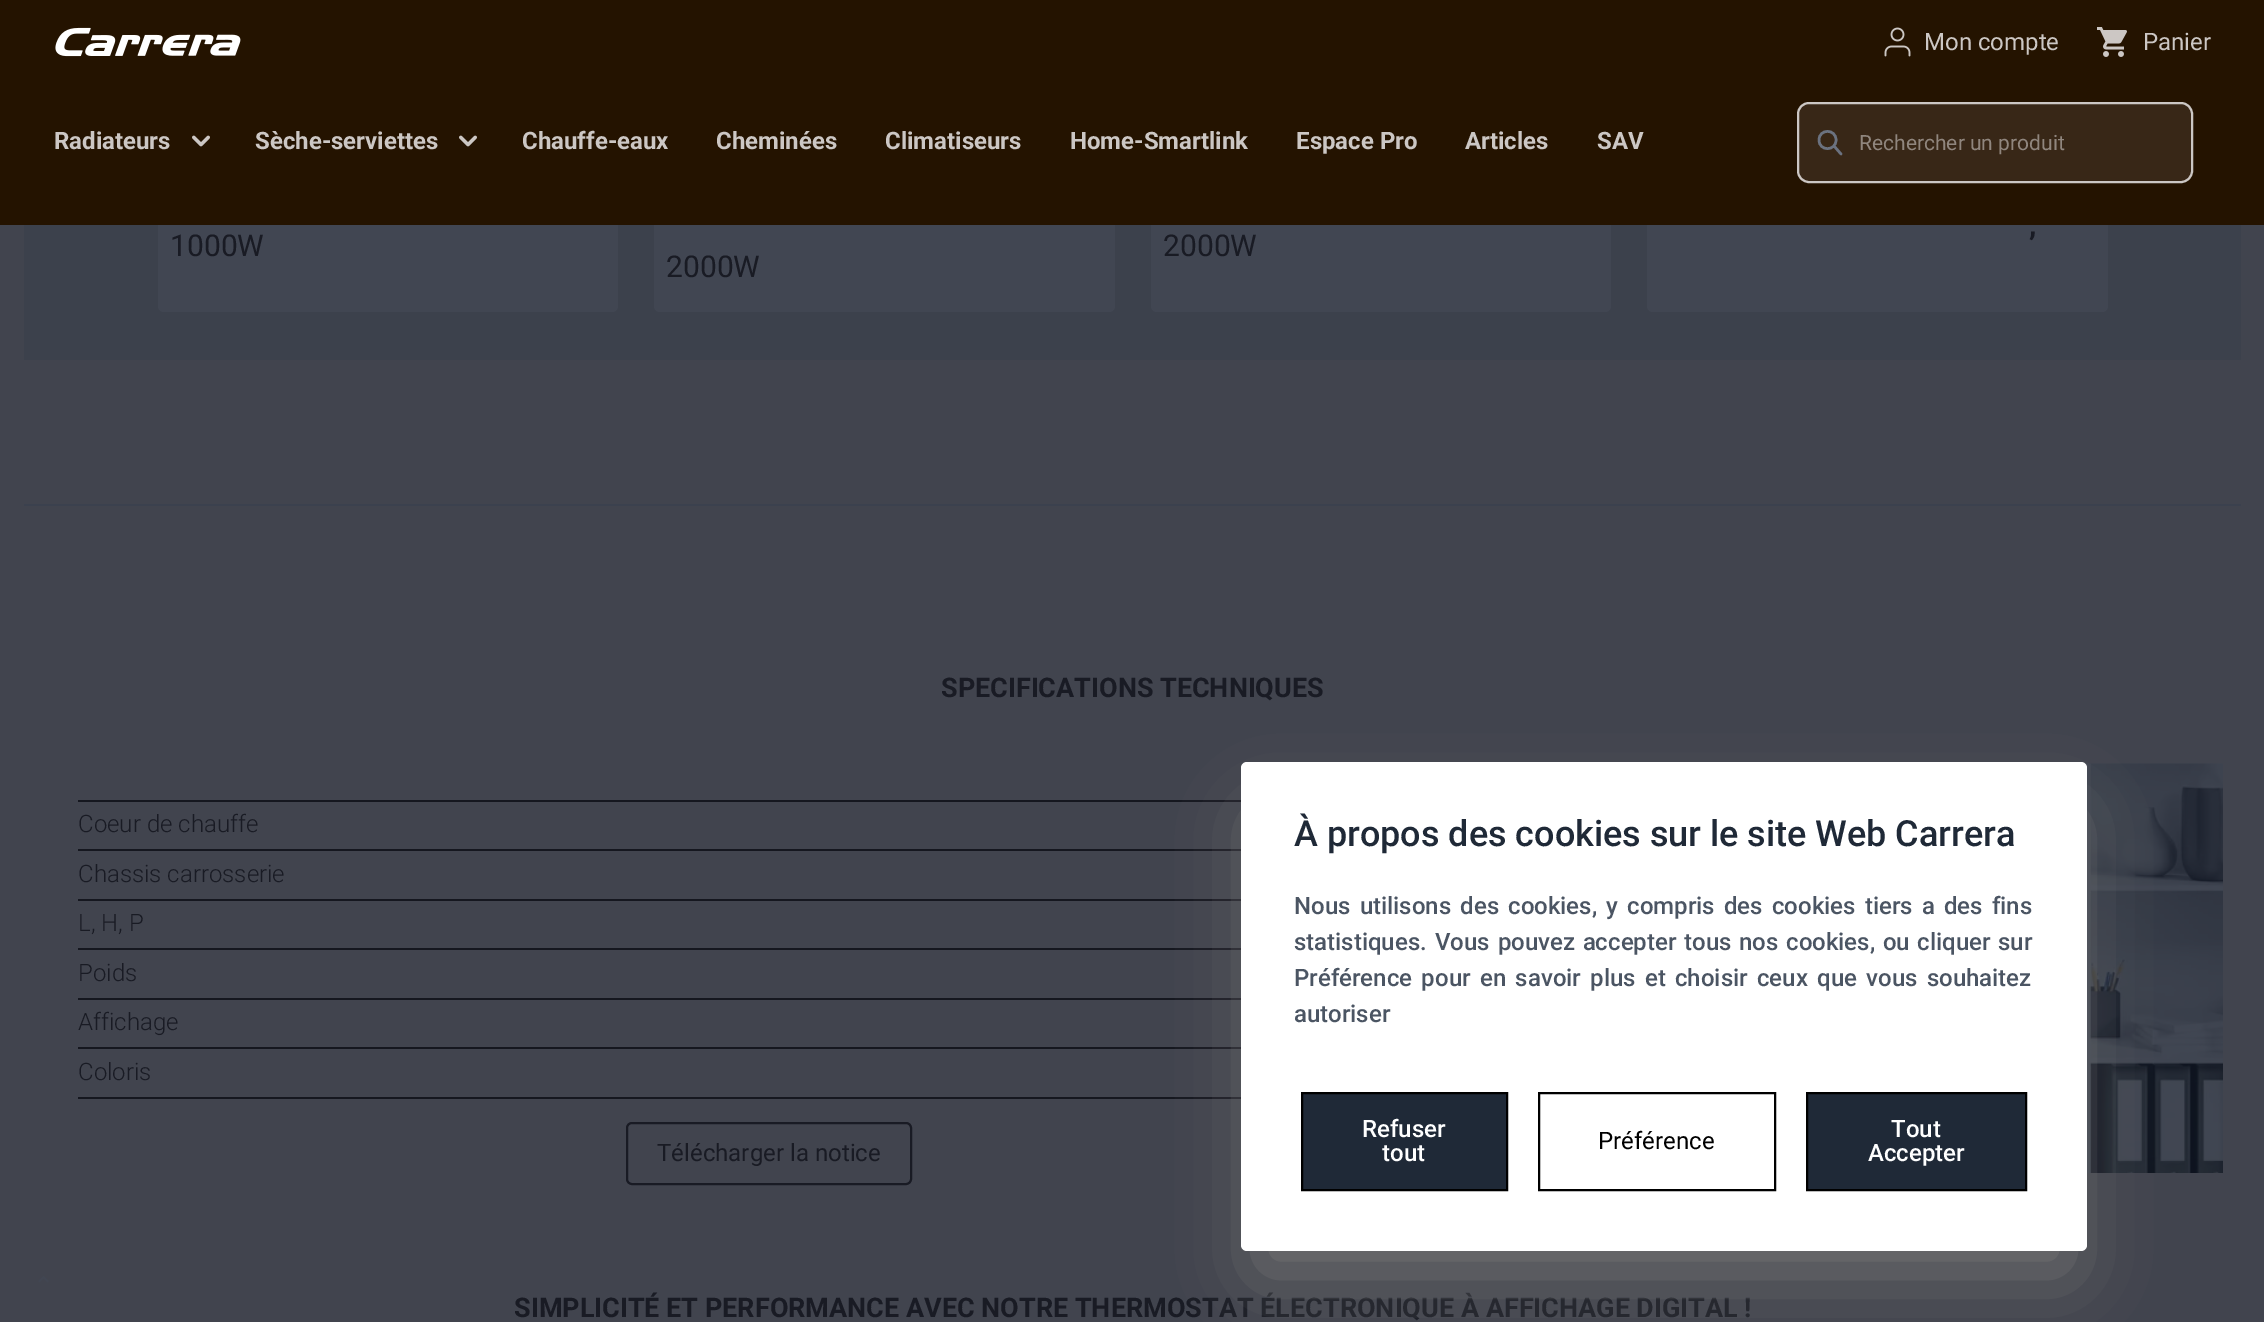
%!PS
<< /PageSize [2264 1322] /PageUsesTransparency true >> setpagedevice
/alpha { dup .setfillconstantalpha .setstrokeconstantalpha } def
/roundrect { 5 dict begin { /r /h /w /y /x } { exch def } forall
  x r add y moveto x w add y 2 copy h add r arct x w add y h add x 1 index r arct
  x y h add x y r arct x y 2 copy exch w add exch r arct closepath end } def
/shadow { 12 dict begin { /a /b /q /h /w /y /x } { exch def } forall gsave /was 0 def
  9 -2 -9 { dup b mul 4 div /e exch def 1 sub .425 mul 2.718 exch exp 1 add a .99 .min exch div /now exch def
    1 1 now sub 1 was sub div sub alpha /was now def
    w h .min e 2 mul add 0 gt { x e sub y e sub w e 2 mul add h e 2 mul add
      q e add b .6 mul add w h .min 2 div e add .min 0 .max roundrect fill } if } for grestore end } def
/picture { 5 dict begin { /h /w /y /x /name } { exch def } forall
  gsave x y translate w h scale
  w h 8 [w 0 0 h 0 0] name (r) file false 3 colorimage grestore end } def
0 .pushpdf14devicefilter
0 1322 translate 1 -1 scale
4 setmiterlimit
0.255 0.267 0.306 setrgbcolor
0 0 2264 1322 rectfill
0.235 0.255 0.298 setrgbcolor
24 225 2217 135 rectfill
0.255 0.275 0.322 setrgbcolor
158 -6 460 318 6 roundrect fill
1151 -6 460 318 6 roundrect fill
1647 -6 461 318 6 roundrect fill
654 -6 461 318 6 roundrect fill
0.141 0.075 0 setrgbcolor
0 0 2264 225 rectfill
(img1.rgb) 55 27 186 30 picture
(img2.rgb) 1884 27 27 30 picture
/Roboto-Regular [24 0 0 -24 0 0] selectfont
0.8 0.78 0.769 setrgbcolor
1924 50 moveto (Mon compte) show
(img3.rgb) 2097 27 30 30 picture
2143 50 moveto (Panier) show
/Roboto-Bold [24 0 0 -24 0 0] selectfont
54 149 moveto (Radiateurs) show
(img4.rgb) 192 135 18 12 picture
255 149 moveto (Sèche-serviettes) show
(img4.rgb) 459 135 18 12 picture
522 149 moveto (Chauffe-eaux) show
716 149 moveto (Cheminées) show
885 149 moveto (Climatiseurs) show
1070 149 moveto (Home-Smartlink) show
1296 149 moveto (Espace Pro) show
1465 149 moveto (Articles) show
1597 149 moveto (SAV) show
0.22 0.153 0.09 setrgbcolor
1798 103 394 79 11 roundrect gsave fill grestore
0.8 0.78 0.769 setrgbcolor
2 setlinewidth
stroke
0.42 0.447 0.502 setrgbcolor
2.5 setlinewidth
1 setlinecap
1 setlinejoin
newpath 1841 154 moveto 1834 146 lineto 1836 140 moveto 1836 151.5 1819 151.5 1819 140 curveto 1819 128.5 1836 128.5 1836 140 curveto closepath stroke
/Roboto-Regular [21 0 0 -21 0 0] selectfont
0.565 0.525 0.494 setrgbcolor
1859 150 moveto (Rechercher un produit) show
/Roboto-Regular [30 0 0 -30 0 0] selectfont
0.098 0.106 0.141 setrgbcolor
170 256 moveto (1000W) show
1163 256 moveto (2000W) show
/Roboto-Bold [30 0 0 -30 0 0] selectfont
2029 235 moveto (,) show
/Roboto-Regular [30 0 0 -30 0 0] selectfont
666 277 moveto (2000W) show
0.231 0.255 0.306 setrgbcolor
24 504 2217 2 rectfill
/Roboto-Bold [27 0 0 -27 0 0] selectfont
0.098 0.106 0.141 setrgbcolor
941 697 moveto (SPECIFICATIONS TECHNIQUES) show
0.082 0.09 0.122 setrgbcolor
78 800 1163 2 rectfill
/Roboto-Light [24 0 0 -24 0 0] selectfont
0.098 0.106 0.141 setrgbcolor
78 832 moveto (Coeur de chauffe) show
0.082 0.09 0.122 setrgbcolor
78 849 1163 2 rectfill
0.098 0.106 0.141 setrgbcolor
78 882 moveto (Chassis carrosserie) show
0.082 0.09 0.122 setrgbcolor
78 899 1163 2 rectfill
0.098 0.106 0.141 setrgbcolor
78 931 moveto (L, H, P) show
0.082 0.09 0.122 setrgbcolor
78 948 1163 2 rectfill
0.098 0.106 0.141 setrgbcolor
78 981 moveto (Poids) show
0.082 0.09 0.122 setrgbcolor
78 998 1163 2 rectfill
0.098 0.106 0.141 setrgbcolor
78 1030 moveto (Affichage) show
0.082 0.09 0.122 setrgbcolor
78 1047 1163 2 rectfill
0.098 0.106 0.141 setrgbcolor
78 1080 moveto (Coloris) show
0.082 0.09 0.122 setrgbcolor
78 1097 1163 2 rectfill
0.098 0.106 0.141 setrgbcolor
2 setlinewidth
0 setlinecap
0 setlinejoin
627 1123 284 61 5 roundrect stroke
/Roboto-Regular [24 0 0 -24 0 0] selectfont
657 1161 moveto (Télécharger la notice) show
(img5.rgb) 2084 763 139 410 picture
/Roboto-Bold [27 0 0 -27 0 0] selectfont
514 1317 moveto (SIMPLICITÉ ET PERFORMANCE AVEC NOTRE THERMOSTAT ÉLECTRONIQUE À AFFICHAGE DIGITAL !) show
0.451 setgray
1259 818 810 453 0 37.5 1 shadow
1 setgray
1241 762 846 489 6 roundrect fill
/Roboto-Medium [36 0 0 -36 0 0] selectfont
0.122 0.161 0.216 setrgbcolor
1294 846 moveto (À propos des cookies sur le site Web Carrera) show
/Roboto-Medium [24 0 0 -24 0 0] selectfont
0.294 0.333 0.388 setrgbcolor
1294 914 moveto 3.25 0 32 (Nous utilisons des cookies, y compris des cookies tiers a des fins) widthshow
1294 950 moveto (statistiques.) show
1435 950 moveto 1.75 0 32 (Vous pouvez accepter tous nos cookies, ou cliquer sur) widthshow
1294 986 moveto 3.4 0 32 (Préférence pour en savoir plus et choisir ceux que vous souhaitez) widthshow
1294 1022 moveto (autoriser) show
0.122 0.161 0.216 setrgbcolor
newpath 1302 1093 moveto 1507 1093 lineto 1507 1190 lineto 1302 1190 lineto closepath gsave fill grestore
0 setgray
stroke
1 setgray
1362 1137 moveto (Refuser) show
1382 1161 moveto (tout) show
0 setgray
1539 1093 236 97 rectstroke
/Roboto-Regular [24 0 0 -24 0 0] selectfont
1598 1149 moveto (Préférence) show
0.122 0.161 0.216 setrgbcolor
newpath 1807 1093 moveto 2026 1093 lineto 2026 1190 lineto 1807 1190 lineto closepath gsave fill grestore
0 setgray
stroke
/Roboto-Medium [24 0 0 -24 0 0] selectfont
1 setgray
1891 1137 moveto (Tout) show
1868 1161 moveto (Accepter) show
(img6.rgb) 38 1276 11 7 picture
.poppdf14devicefilter showpage
